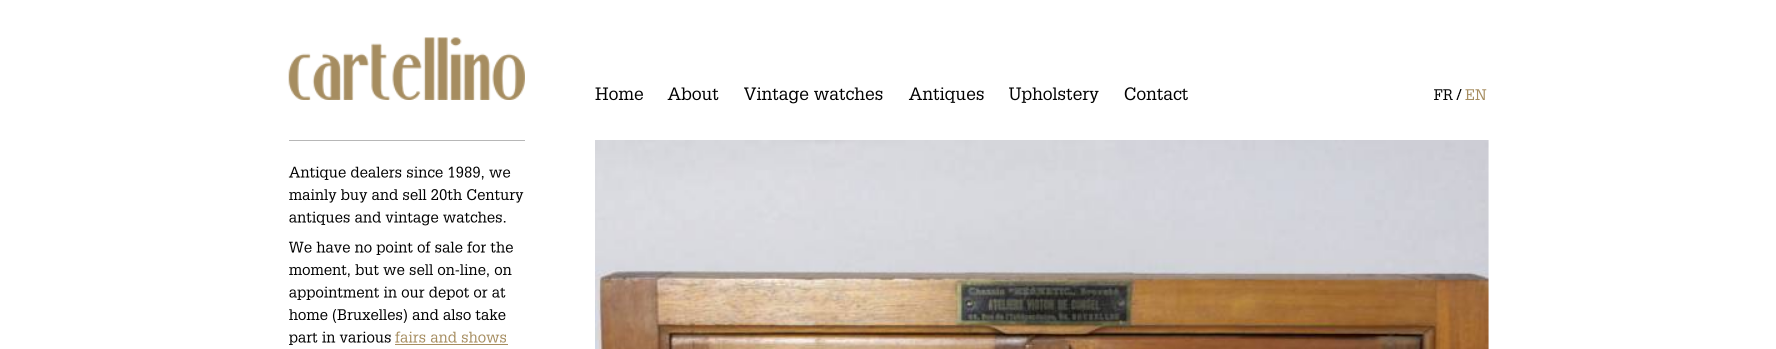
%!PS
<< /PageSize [1776 349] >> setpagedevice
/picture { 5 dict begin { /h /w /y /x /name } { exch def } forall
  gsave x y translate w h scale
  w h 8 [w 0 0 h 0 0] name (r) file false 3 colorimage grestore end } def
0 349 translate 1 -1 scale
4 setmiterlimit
1 setgray
0 0 1776 349 rectfill
(img1.rgb) 288 37 237 63 picture
(img2.rgb) 595 87 48 14 picture
(img3.rgb) 667 87 52 14 picture
(img4.rgb) 744 87 139 17 picture
(img5.rgb) 908 87 76 16 picture
(img6.rgb) 1009 87 90 16 picture
(img7.rgb) 1124 87 64 14 picture
(img8.rgb) 1434 89 19 11 picture
0 setgray
newpath 1456.5 100 moveto 1460.5 89 lineto 1461.5 89 lineto 1457.5 100 lineto closepath fill
(img9.rgb) 1465 89 22 11 picture
0.718 setgray
289 140 236 1 rectfill
(img10.rgb) 288 166 223 14 picture
(img11.rgb) 289 189 235 14 picture
(img12.rgb) 289 211 217 15 picture
(img13.rgb) 288 241 225 14 picture
(img14.rgb) 289 264 223 14 picture
(img15.rgb) 289 286 217 14 picture
(img16.rgb) 289 309 217 14 picture
(img17.rgb) 289 331 102 14 picture
(img18.rgb) 395 331 111 12 picture
0.651 0.553 0.376 setrgbcolor
395 344 113 1 rectfill
(img19.rgb) 595 140 894 209 picture
showpage
